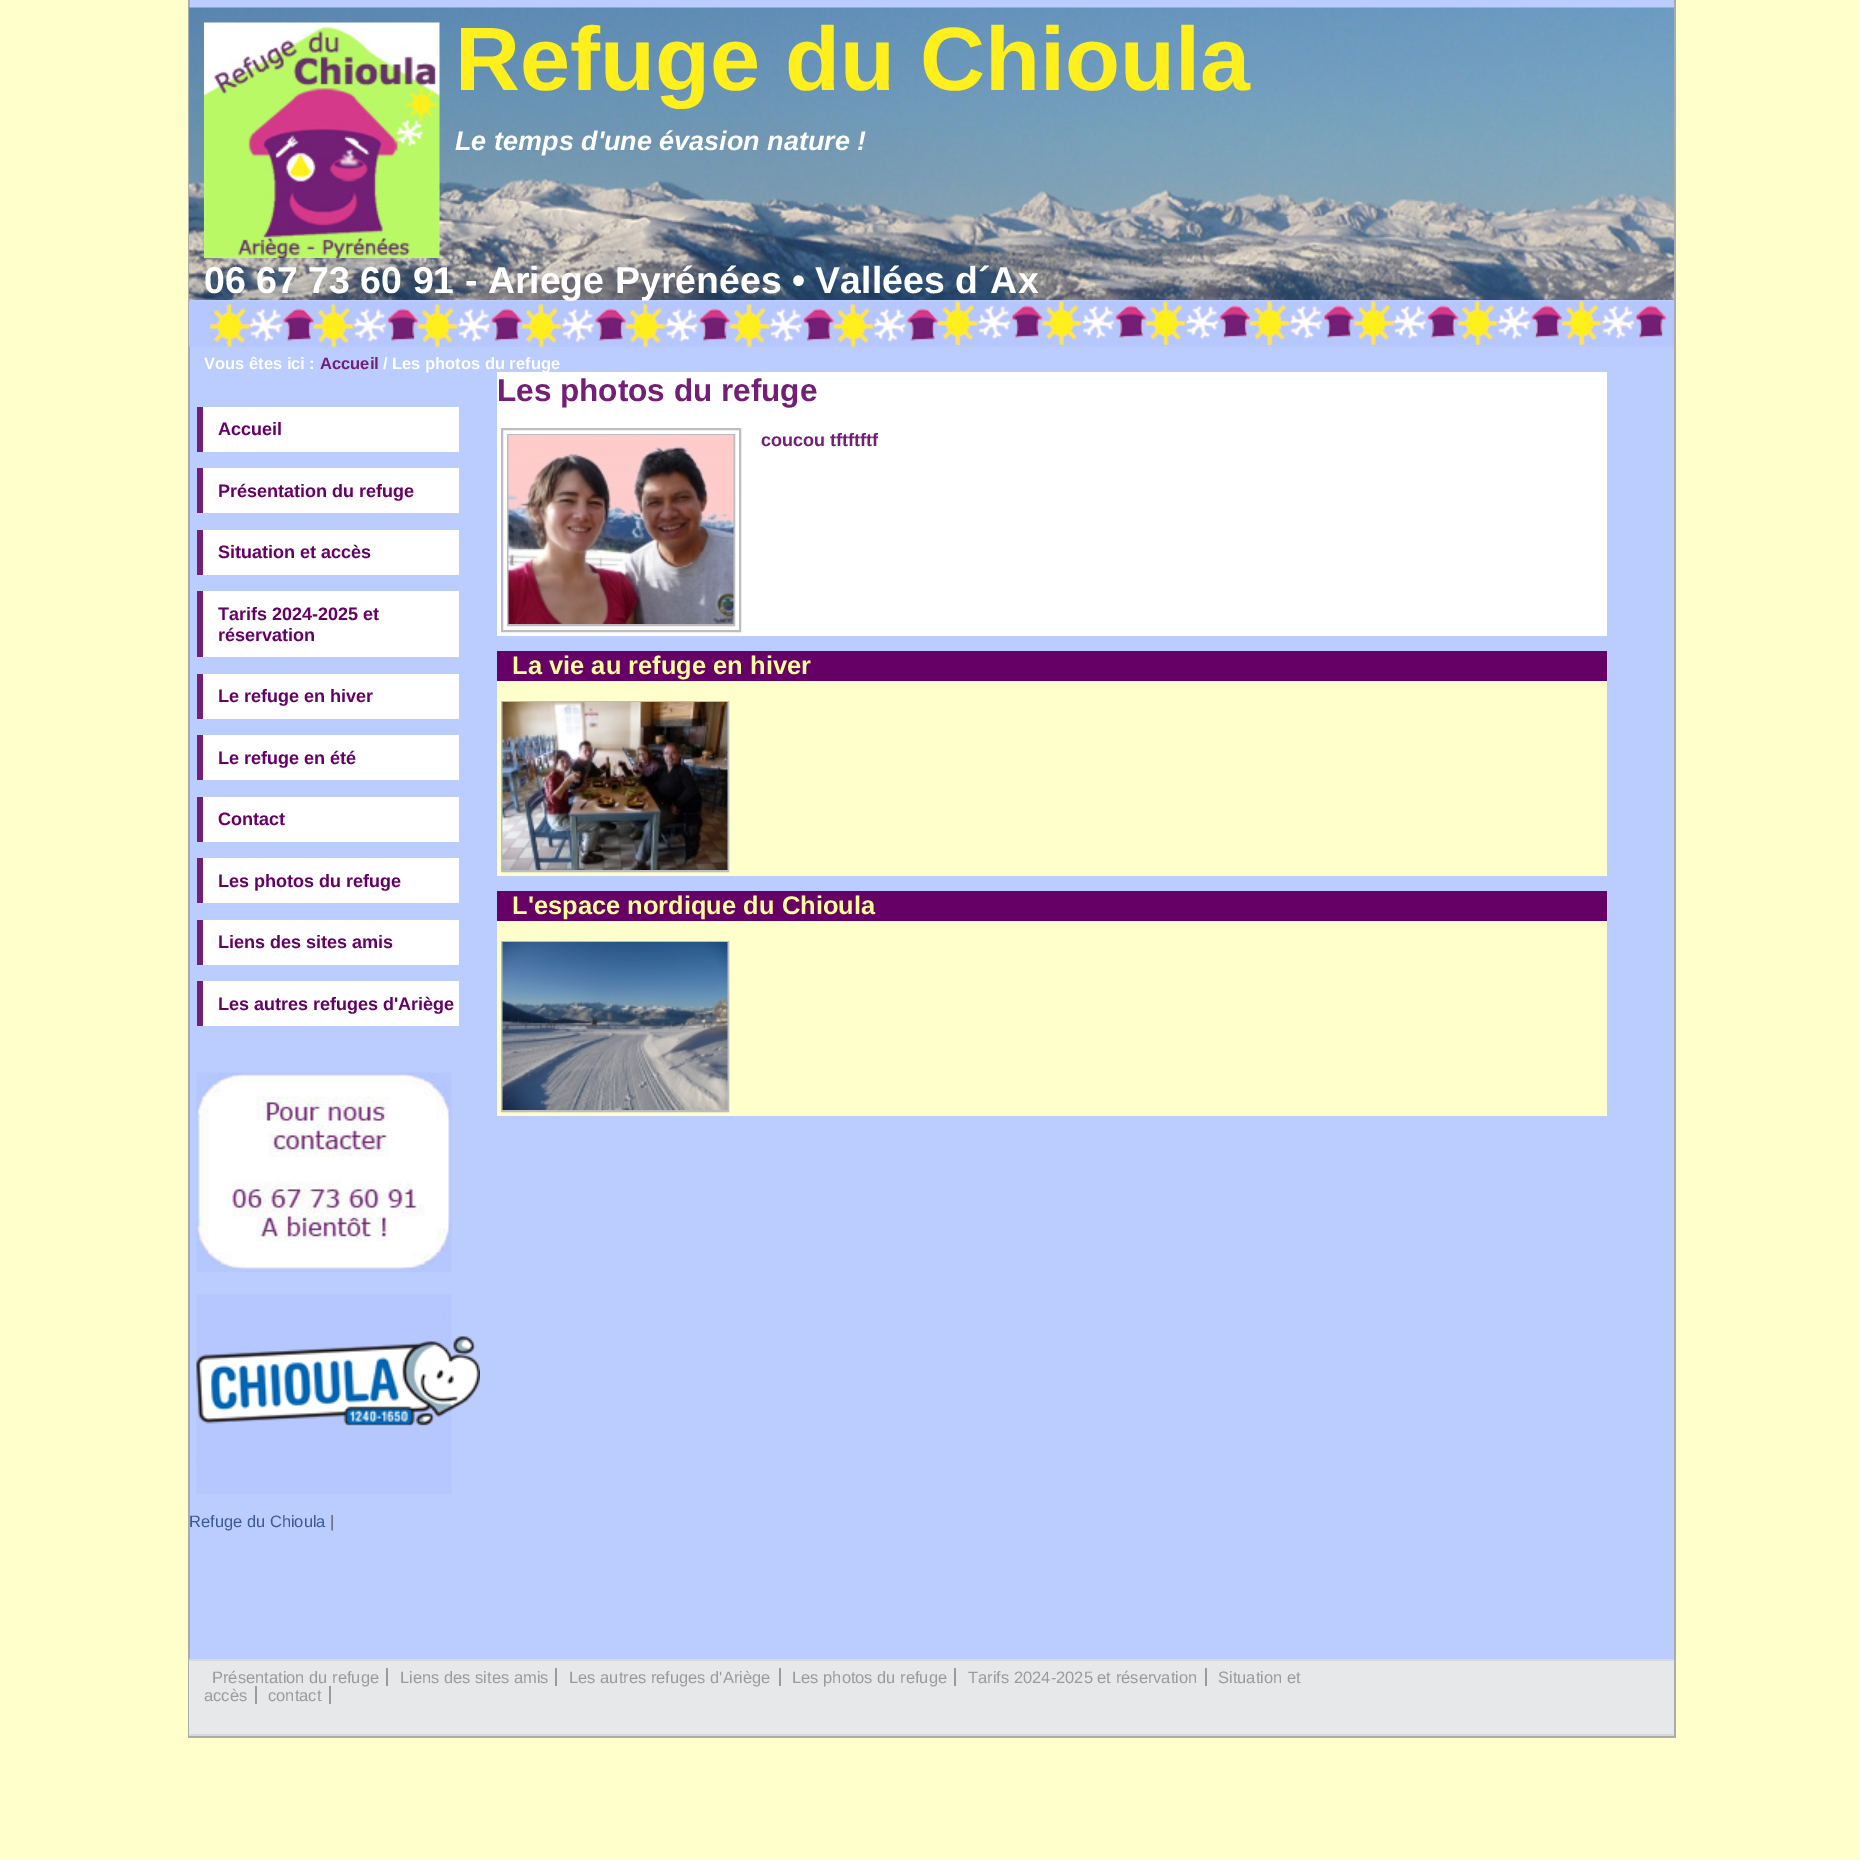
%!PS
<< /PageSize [1860 1860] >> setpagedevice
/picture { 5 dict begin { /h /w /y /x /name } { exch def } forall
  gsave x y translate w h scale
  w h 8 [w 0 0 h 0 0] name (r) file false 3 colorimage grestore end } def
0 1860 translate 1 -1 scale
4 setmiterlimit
1 1 0.8 setrgbcolor
0 0 1860 1860 rectfill
0.733 0.8 1 setrgbcolor
190 0 1484 1659 rectfill
0.663 0.671 0.678 setrgbcolor
1674 0 2 1737 rectfill
188 1736 1488 2 rectfill
188 0 2 1737 rectfill
(img1.rgb) 189 7 1485 293 picture
(img2.rgb) 204 22 236 236 picture
/LiberationSans-Bold [90 0 0 -90 0 0] selectfont
1 0.937 0.114 setrgbcolor
455 90 moveto (Refuge du Chioula) show
/LiberationSans-BoldItalic [27 0 0 -27 0 0] selectfont
1 setgray
455 150 moveto (Le temps d'une évasion nature !) show
/LiberationSans-Bold [37.5 0 0 -37.5 0 0] selectfont
204 293 moveto (06 67 73 60 91 - Ariege Pyrénées • Vallées d´Ax) show
(img3.rgb) 189 301 1485 46 picture
/LiberationSans-Bold [16.5 0 0 -16.5 0 0] selectfont
204 369 moveto (Vous êtes ici :) show
0.447 0.122 0.459 setrgbcolor
320 369 moveto (Accueil) show
1 setgray
383 369 moveto (/ Les photos du refuge) show
203 407 256 45 rectfill
0.447 0.122 0.459 setrgbcolor
197 407 6 45 rectfill
/LiberationSans-Bold [18 0 0 -18 0 0] selectfont
0.4 0 0.4 setrgbcolor
218 435 moveto (Accueil) show
1 setgray
203 468 256 45 rectfill
0.447 0.122 0.459 setrgbcolor
197 468 6 45 rectfill
0.4 0 0.4 setrgbcolor
218 497 moveto (Présentation du refuge) show
1 setgray
203 530 256 45 rectfill
0.447 0.122 0.459 setrgbcolor
197 530 6 45 rectfill
0.4 0 0.4 setrgbcolor
218 558 moveto (Situation et accès) show
1 setgray
203 591 256 66 rectfill
0.447 0.122 0.459 setrgbcolor
197 591 6 66 rectfill
0.4 0 0.4 setrgbcolor
218 620 moveto (Tarifs 2024-2025 et) show
218 641 moveto (réservation) show
1 setgray
203 674 256 45 rectfill
0.447 0.122 0.459 setrgbcolor
197 674 6 45 rectfill
0.4 0 0.4 setrgbcolor
218 702 moveto (Le refuge en hiver) show
1 setgray
203 735 256 45 rectfill
0.447 0.122 0.459 setrgbcolor
197 735 6 45 rectfill
0.4 0 0.4 setrgbcolor
218 764 moveto (Le refuge en été) show
1 setgray
203 797 256 45 rectfill
0.447 0.122 0.459 setrgbcolor
197 797 6 45 rectfill
0.4 0 0.4 setrgbcolor
218 825 moveto (Contact) show
1 setgray
203 858 256 45 rectfill
0.447 0.122 0.459 setrgbcolor
197 858 6 45 rectfill
0.4 0 0.4 setrgbcolor
218 887 moveto (Les photos du refuge) show
1 setgray
203 920 256 45 rectfill
0.447 0.122 0.459 setrgbcolor
197 920 6 45 rectfill
0.4 0 0.4 setrgbcolor
218 948 moveto (Liens des sites amis) show
1 setgray
203 981 256 45 rectfill
0.447 0.122 0.459 setrgbcolor
197 981 6 45 rectfill
0.4 0 0.4 setrgbcolor
218 1010 moveto (Les autres refuges d'Ariège) show
(img4.rgb) 196 1072 256 200 picture
(img5.rgb) 196 1294 256 200 picture
(img6.rgb) 196 1336 284 90 picture
/LiberationSans-Regular [16.5 0 0 -16.5 0 0] selectfont
0.231 0.349 0.596 setrgbcolor
189 1527 moveto (Refuge du Chioula) show
0.333 setgray
330 1527 moveto (|) show
1 setgray
497 372 1110 264 rectfill
/LiberationSans-Bold [31.5 0 0 -31.5 0 0] selectfont
0.447 0.122 0.459 setrgbcolor
497 401 moveto (Les photos du refuge) show
0.733 0.741 0.749 setrgbcolor
2 setlinewidth
502 429 238 202 rectstroke
508 435 226 190 rectstroke
(img7.rgb) 508 435 226 189 picture
/LiberationSans-Bold [18 0 0 -18 0 0] selectfont
0.447 0.122 0.459 setrgbcolor
761 446 moveto (coucou tftftftf) show
1 1 0.8 setrgbcolor
497 681 1110 195 rectfill
0.4 0 0.4 setrgbcolor
497 651 1110 30 rectfill
/LiberationSans-Bold [25.5 0 0 -25.5 0 0] selectfont
1 1 0.6 setrgbcolor
512 674 moveto (La vie au refuge en hiver) show
0.733 0.741 0.749 setrgbcolor
502 702 226 169 rectstroke
(img8.rgb) 502 702 226 168 picture
1 1 0.8 setrgbcolor
497 921 1110 195 rectfill
0.4 0 0.4 setrgbcolor
497 891 1110 30 rectfill
1 1 0.6 setrgbcolor
512 914 moveto (L'espace nordique du Chioula) show
0.733 0.741 0.749 setrgbcolor
502 942 226 169 rectstroke
(img9.rgb) 502 942 226 168 picture
0.906 0.91 0.914 setrgbcolor
189 1661 1485 73 rectfill
0.847 0.851 0.855 setrgbcolor
189 1659 1485 2 rectfill
189 1734 1485 2 rectfill
/LiberationSans-Regular [16.5 0 0 -16.5 0 0] selectfont
0.604 0.608 0.616 setrgbcolor
212 1683 moveto (Présentation du refuge) show
386 1668 2 18 rectfill
400 1683 moveto (Liens des sites amis) show
555 1668 2 18 rectfill
569 1683 moveto (Les autres refuges d'Ariège) show
779 1668 2 18 rectfill
792 1683 moveto (Les photos du refuge) show
954 1668 2 18 rectfill
968 1683 moveto (Tarifs 2024-2025 et réservation) show
1205 1668 2 18 rectfill
1218 1683 moveto (Situation et) show
204 1701 moveto (accès) show
255 1686 2 18 rectfill
268 1701 moveto (contact) show
329 1686 2 18 rectfill
showpage
